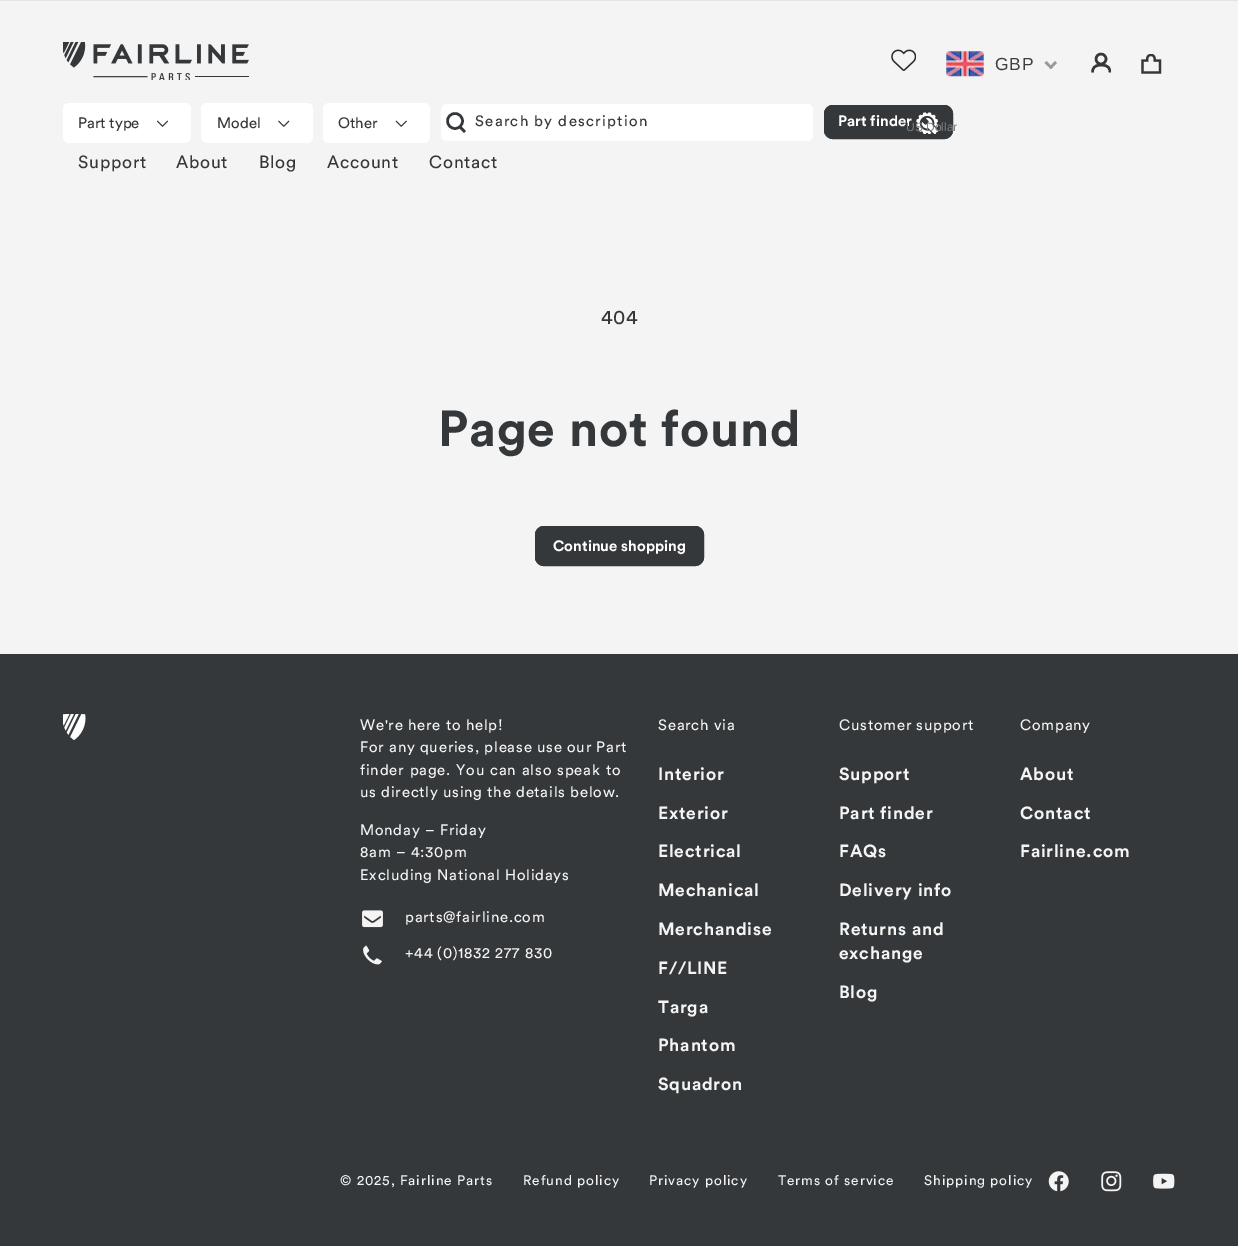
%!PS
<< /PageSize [1238 1246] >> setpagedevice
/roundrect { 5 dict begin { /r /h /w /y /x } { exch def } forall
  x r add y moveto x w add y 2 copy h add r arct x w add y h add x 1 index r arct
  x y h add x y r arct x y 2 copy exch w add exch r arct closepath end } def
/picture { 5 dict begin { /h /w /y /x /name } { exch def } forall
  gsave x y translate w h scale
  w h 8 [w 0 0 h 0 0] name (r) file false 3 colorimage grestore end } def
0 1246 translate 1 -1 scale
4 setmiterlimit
0.957 setgray
0 0 1238 1246 rectfill
0.898 setgray
0 0 1238 1 rectfill
(img1.rgb) 63 42 186 38 picture
(img2.rgb) 891 49 25 22 picture
(img3.rgb) 946 51 38 26 picture
/LiberationSans-Regular [17.5 0 0 -17.5 0 0] selectfont
0.251 0.247 0.247 setrgbcolor
995 70 moveto 0.75 0 (GBP) ashow
0.6 setgray
newpath 1055 61 moveto 1057 63 lineto 1051 69 lineto 1049 67.5 lineto closepath fill
newpath 1046.5 61 moveto 1052.5 67.5 lineto 1051 69 lineto 1044.5 63 lineto closepath fill
0.208 0.22 0.227 setrgbcolor
824 105 129 34 9 roundrect fill
(img8.rgb) 916 112 22 22 picture
824.5 105.5 128 33 8.5 roundrect stroke
/Circular-Bold [15 0 0 -15 0 0] selectfont
1 setgray
838 126 moveto (Part finder) show
/LiberationSans-Regular [12 0 0 -12 0 0] selectfont
0.498 0.506 0.51 setrgbcolor
906 131 moveto (US Dollar) show
0.208 0.22 0.227 setrgbcolor
2.5 setlinewidth
newpath 1101 59 5 0 360 arc closepath stroke
gsave
1086 48 25 25 rectclip
newpath 1092.5 72.5 moveto 1092.5 69 1093.5 65 1101 65 curveto 1109 65 1110 69 1110 72.5 curveto stroke
grestore
(img4.rgb) 1141 54 21 20 picture
1 setgray
63 103 128 40 6 roundrect fill
/Circular-Regular [15 0 0 -15 0 0] selectfont
0.208 0.22 0.227 setrgbcolor
78 128 moveto (Part type) show
(img5.rgb) 156 120 13 7 picture
1 setgray
201 103 112 40 6 roundrect fill
0.208 0.22 0.227 setrgbcolor
217 128 moveto (Model) show
(img6.rgb) 278 120 12 7 picture
1 setgray
323 103 107 40 6 roundrect fill
0.208 0.22 0.227 setrgbcolor
338 128 moveto (Other) show
(img7.rgb) 395 120 12 7 picture
1 setgray
441 104 372 37 6 roundrect fill
0.208 0.22 0.227 setrgbcolor
newpath 455 121 7.5 0 360 arc closepath stroke
2 setlinecap
newpath 460.5 127.5 moveto 464 131 lineto stroke
475 126 moveto 1.25 0 (Search by description) ashow
/Circular-Regular [17.5 0 0 -17.5 0 0] selectfont
78 168 moveto 0.75 0 (Support) ashow
176 168 moveto 0.75 0 (About) ashow
259 168 moveto 0.75 0 (Blog) ashow
327 168 moveto 0.75 0 (Account) ashow
429 168 moveto 0.75 0 (Contact) ashow
/Circular-Regular [20 0 0 -20 0 0] selectfont
601 324 moveto 0.75 0 (404) ashow
/Circular-Bold [50 0 0 -50 0 0] selectfont
438 446 moveto 0.75 0 (Page not found) ashow
535 526 169 40 9 roundrect fill
1 setlinewidth
0 setlinecap
535.5 526.5 168 39 8.5 roundrect stroke
/Circular-Bold [15 0 0 -15 0 0] selectfont
1 setgray
553 551 moveto (Continue shopping) show
0.208 0.22 0.227 setrgbcolor
0 654 1238 592 rectfill
(img9.rgb) 63 714 23 27 picture
/Circular-Regular [15 0 0 -15 0 0] selectfont
0.957 setgray
360 730 moveto 0.75 0 (We're here to help!) ashow
360 752 moveto 0.75 0 (For any queries, please use our Part) ashow
360 775 moveto 0.75 0 32 0.75 0 (finder page. You can also speak to) awidthshow
360 797 moveto 0.75 0 (us directly using the details below.) ashow
360 835 moveto 0.75 0 (Monday – Friday) ashow
360 857 moveto 0.75 0 (8am – 4:30pm) ashow
360 880 moveto 0.75 0 (Excluding National Holidays) ashow
(img10.rgb) 362 910 21 18 picture
405 922 moveto 0.75 0 (parts@fairline.com) ashow
(img11.rgb) 363 945 19 20 picture
405 958 moveto 0.75 0 (+44 \(0\)1832 277 830) ashow
658 730 moveto 0.75 0 (Search via) ashow
/Circular-Bold [17.5 0 0 -17.5 0 0] selectfont
658 780 moveto 0.75 0 (Interior) ashow
658 819 moveto 0.75 0 (Exterior) ashow
658 857 moveto 0.75 0 (Electrical) ashow
658 896 moveto 0.75 0 (Mechanical) ashow
658 935 moveto 0.75 0 (Merchandise) ashow
658 974 moveto 0.75 0 (F//LINE) ashow
658 1013 moveto 0.75 0 (Targa) ashow
658 1051 moveto 0.75 0 (Phantom) ashow
658 1090 moveto 0.75 0 (Squadron) ashow
/Circular-Regular [15 0 0 -15 0 0] selectfont
839 730 moveto 0.75 0 (Customer support) ashow
/Circular-Bold [17.5 0 0 -17.5 0 0] selectfont
839 780 moveto 0.75 0 (Support) ashow
839 819 moveto 0.75 0 (Part finder) ashow
839 857 moveto 0.75 0 (FAQs) ashow
839 896 moveto 0.75 0 (Delivery info) ashow
839 935 moveto 0.75 0 (Returns and) ashow
839 959 moveto 0.75 0 (exchange) ashow
839 998 moveto 0.75 0 (Blog) ashow
/Circular-Regular [15 0 0 -15 0 0] selectfont
1020 730 moveto 0.75 0 (Company) ashow
/Circular-Bold [17.5 0 0 -17.5 0 0] selectfont
1020 780 moveto 0.75 0 (About) ashow
1020 819 moveto 0.75 0 (Contact) ashow
1020 857 moveto 0.75 0 (Fairline.com) ashow
/Circular-Regular [13.75 0 0 -13.75 0 0] selectfont
340 1185 moveto 0.9 0 (© 2025, Fairline Parts) ashow
523 1185 moveto 0.9 0 (Refund policy) ashow
649 1185 moveto 0.9 0 (Privacy policy) ashow
778 1185 moveto 0.9 0 (Terms of service) ashow
924 1185 moveto 0.9 0 (Shipping policy) ashow
(img12.rgb) 1048 1171 21 21 picture
(img13.rgb) 1101 1171 21 21 picture
(img14.rgb) 1153 1173 22 16 picture
showpage
